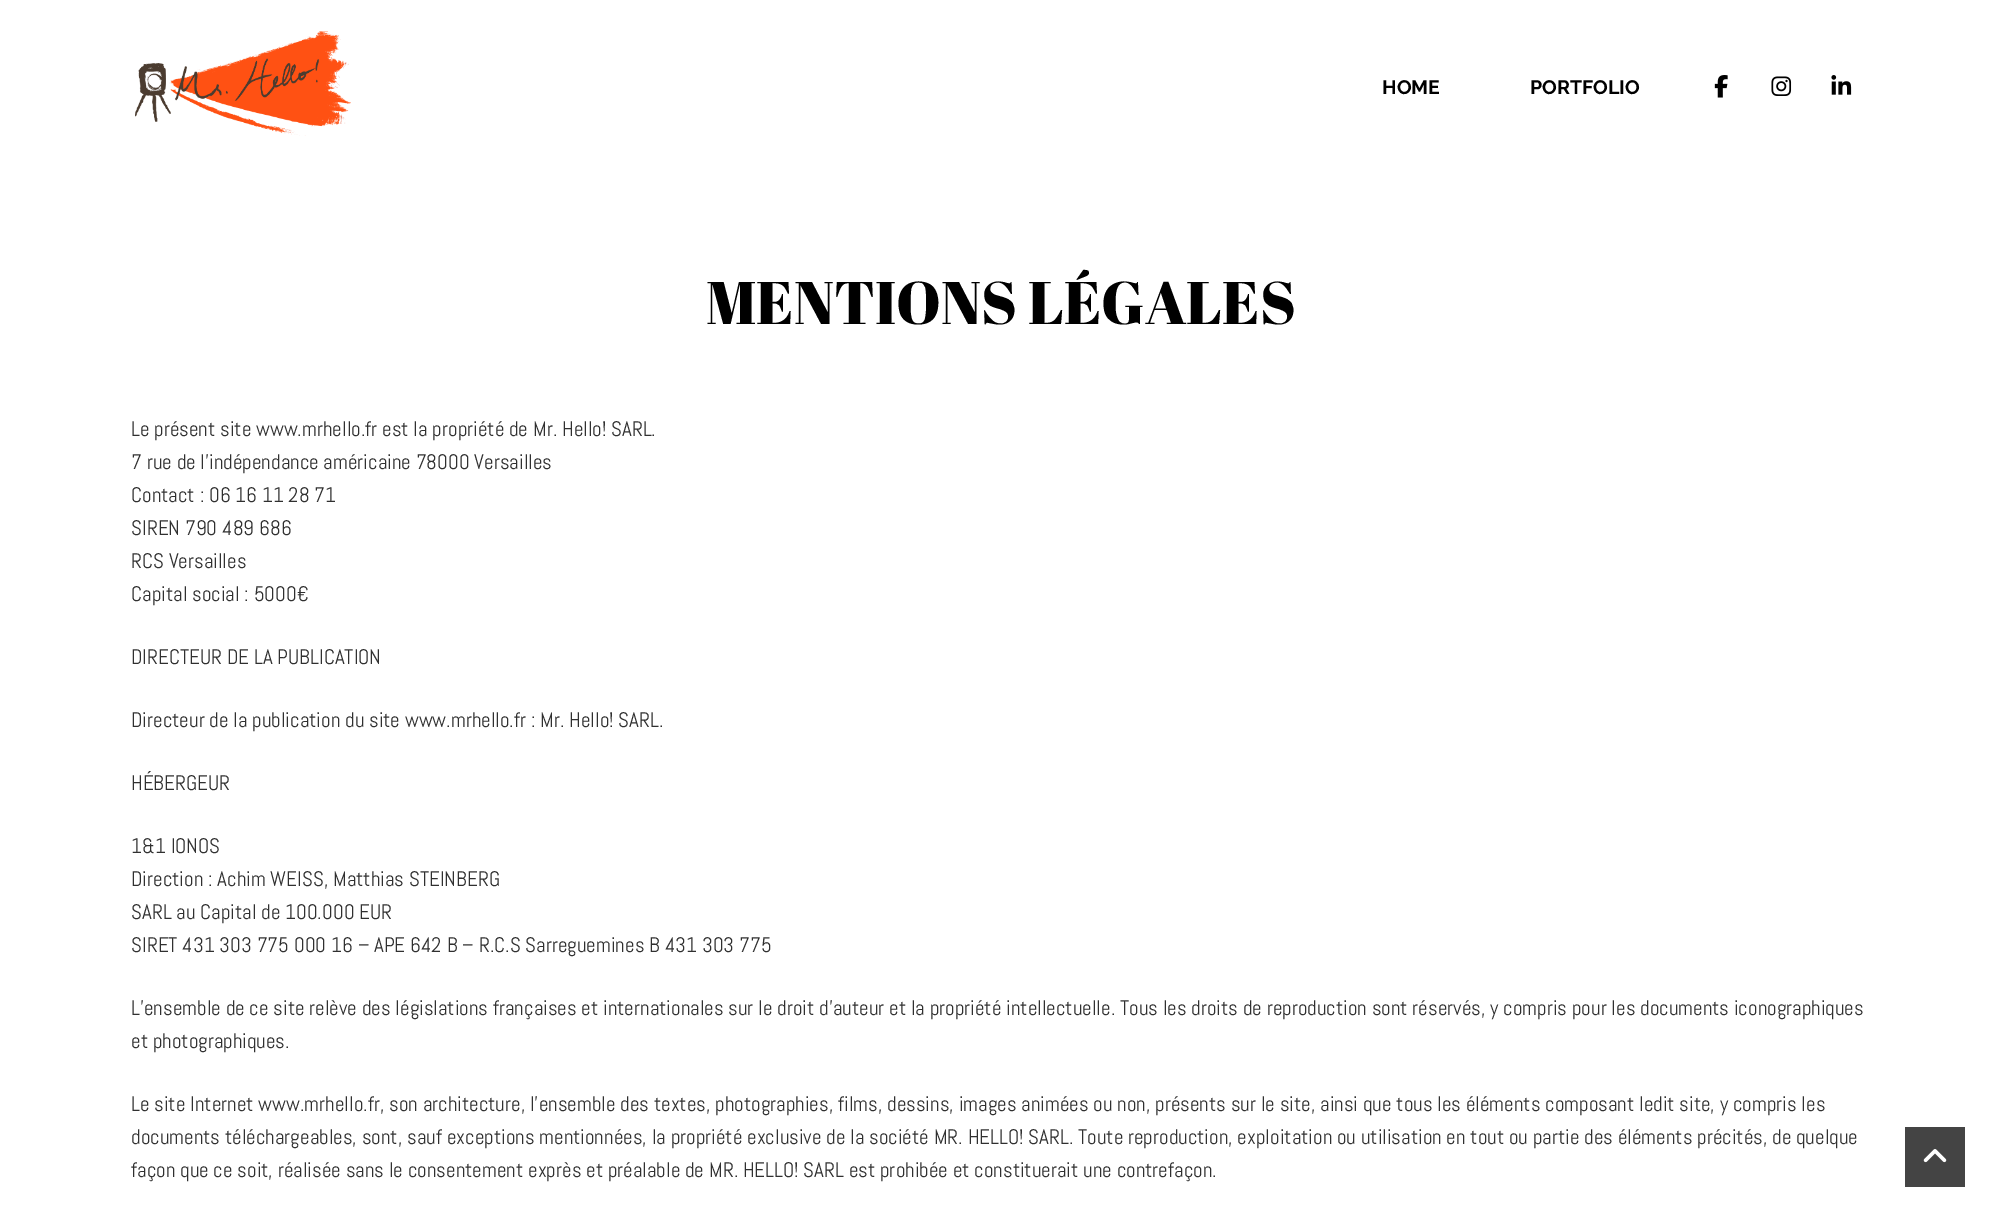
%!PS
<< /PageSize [2001 1222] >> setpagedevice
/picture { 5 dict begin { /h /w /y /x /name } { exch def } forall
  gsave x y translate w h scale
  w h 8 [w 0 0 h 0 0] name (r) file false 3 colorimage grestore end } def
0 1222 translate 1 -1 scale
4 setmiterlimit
1 setgray
0 0 2001 1222 rectfill
(img1.rgb) 135 31 216 105 picture
/Raleway-Bold [19.5 0 0 -19.5 0 0] selectfont
0 setgray
1382 94 moveto (HOME) show
1530 94 moveto (PORTFOLIO) show
(img2.rgb) 1714 75 14 23 picture
(img3.rgb) 1771 76 21 20 picture
(img4.rgb) 1831 75 21 20 picture
/AbrilFatface-Regular [60 0 0 -60 0 0] selectfont
706 324 moveto (MENTIONS LÉGALES) show
/Abel-Regular [21 0 0 -21 0 0] selectfont
0.188 setgray
131 436 moveto (Le présent site www.mrhello.fr est la propriété de Mr. Hello! SARL.) show
131 469 moveto (7 rue de l’indépendance américaine 78000 Versailles) show
131 502 moveto (Contact : 06 16 11 28 71) show
131 535 moveto (SIREN 790 489 686) show
131 568 moveto (RCS Versailles) show
131 601 moveto (Capital social : 5000€) show
131 664 moveto (DIRECTEUR DE LA PUBLICATION) show
131 727 moveto (Directeur de la publication du site www.mrhello.fr : Mr. Hello! SARL.) show
131 790 moveto (HÉBERGEUR) show
131 853 moveto (1&1 IONOS) show
131 886 moveto (Direction : Achim WEISS, Matthias STEINBERG) show
131 919 moveto (SARL au Capital de 100.000 EUR) show
131 952 moveto (SIRET 431 303 775 000 16 – APE 642 B – R.C.S Sarreguemines B 431 303 775) show
131 1015 moveto (L’ensemble de ce site relève des législations françaises et internationales sur le droit d’auteur et la propriété intellectuelle. Tous les droits de reproduction sont réservés, y compris pour les documents iconographiques) show
131 1048 moveto (et photographiques.) show
131 1111 moveto (Le site Internet www.mrhello.fr, son architecture, l’ensemble des textes, photographies, films, dessins, images animées ou non, présents sur le site, ainsi que tous les éléments composant ledit site, y compris les) show
131 1144 moveto (documents téléchargeables, sont, sauf exceptions mentionnées, la propriété exclusive de la société MR. HELLO! SARL. Toute reproduction, exploitation ou utilisation en tout ou partie des éléments précités, de quelque) show
131 1177 moveto (façon que ce soit, réalisée sans le consentement exprès et préalable de MR. HELLO! SARL est prohibée et constituerait une contrefaçon.) show
0.267 setgray
1905 1127 60 60 rectfill
(img5.rgb) 1923 1149 24 14 picture
showpage
